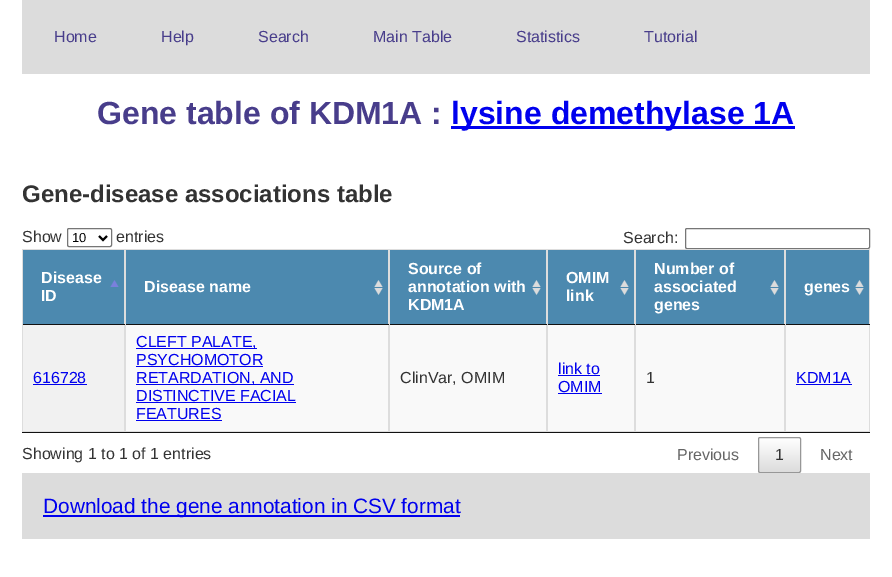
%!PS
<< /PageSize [892 577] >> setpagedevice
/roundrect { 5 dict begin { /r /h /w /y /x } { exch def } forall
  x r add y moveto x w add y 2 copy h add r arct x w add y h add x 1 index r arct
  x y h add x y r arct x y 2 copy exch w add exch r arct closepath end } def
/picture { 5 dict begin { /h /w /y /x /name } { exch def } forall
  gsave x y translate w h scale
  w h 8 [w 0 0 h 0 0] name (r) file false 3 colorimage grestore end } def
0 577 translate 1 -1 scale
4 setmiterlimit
1 setgray
0 0 892 577 rectfill
0.863 setgray
22 0 848 74 rectfill
/LiberationSans-Regular [16 0 0 -16 0 0] selectfont
0.282 0.239 0.545 setrgbcolor
54 42 moveto (Home) show
161 42 moveto (Help) show
258 42 moveto (Search) show
373 42 moveto (Main Table) show
516 42 moveto (Statistics) show
644 42 moveto (Tutorial) show
/LiberationSans-Bold [32 0 0 -32 0 0] selectfont
97 124 moveto (Gene table of KDM1A :) show
0 0 0.933 setrgbcolor
451 126 344 3 rectfill
451 124 moveto (lysine demethylase 1A) show
/LiberationSans-Bold [24 0 0 -24 0 0] selectfont
0.2 setgray
22 202 moveto (Gene-disease associations table) show
/LiberationSans-Regular [16 0 0 -16 0 0] selectfont
22 242 moveto (Show) show
0.463 setgray
67.5 228.5 44 18 1.5 roundrect stroke
0 setgray
2 setlinewidth
newpath 99 236 moveto 103 240 lineto 107 236 lineto stroke
/LiberationSans-Regular [13 0 0 -13 0 0] selectfont
72 242 moveto (10) show
/LiberationSans-Regular [16 0 0 -16 0 0] selectfont
0.2 setgray
116 242 moveto (entries) show
623 243 moveto (Search:) show
0.463 setgray
1 setlinewidth
685.5 228.5 184 20 1.5 roundrect stroke
0.067 setgray
22 432 848 1 rectfill
0.298 0.537 0.686 setrgbcolor
23 250 101 74 rectfill
(img1.rgb) 110 280 9 7 picture
0.867 setgray
22 249 848 1 rectfill
124 249 1 183 rectfill
0.067 setgray
22 324 103 1 rectfill
0.867 setgray
22 249 1 76 rectfill
/LiberationSans-Bold [16 0 0 -16 0 0] selectfont
1 setgray
41 283 moveto (Disease) show
41 301 moveto (ID) show
0.298 0.537 0.686 setrgbcolor
126 250 262 74 rectfill
(img2.rgb) 374 280 9 15 picture
0.867 setgray
388 249 1 76 rectfill
0.067 setgray
125 324 264 1 rectfill
0.867 setgray
125 249 1 76 rectfill
1 setgray
144 292 moveto (Disease name) show
0.298 0.537 0.686 setrgbcolor
390 250 156 74 rectfill
(img2.rgb) 532 280 9 15 picture
0.867 setgray
546 249 1 76 rectfill
0.067 setgray
389 324 158 1 rectfill
0.867 setgray
389 249 1 76 rectfill
1 setgray
408 274 moveto (Source of) show
408 292 moveto (annotation with) show
408 310 moveto (KDM1A) show
0.298 0.537 0.686 setrgbcolor
548 250 86 74 rectfill
(img2.rgb) 620 280 9 15 picture
0.867 setgray
634 249 1 76 rectfill
0.067 setgray
547 324 88 1 rectfill
0.867 setgray
547 249 1 76 rectfill
1 setgray
566 283 moveto (OMIM) show
566 301 moveto (link) show
0.298 0.537 0.686 setrgbcolor
636 250 148 74 rectfill
(img2.rgb) 770 280 9 15 picture
0.867 setgray
784 249 1 76 rectfill
0.067 setgray
635 324 150 1 rectfill
0.867 setgray
635 249 1 76 rectfill
1 setgray
654 274 moveto (Number of) show
654 292 moveto (associated) show
654 310 moveto (genes) show
0.298 0.537 0.686 setrgbcolor
786 250 83 74 rectfill
(img2.rgb) 855 280 9 15 picture
0.867 setgray
869 249 1 183 rectfill
0.067 setgray
785 324 85 1 rectfill
0.867 setgray
785 249 1 76 rectfill
1 setgray
804 292 moveto (genes) show
0.976 setgray
126 325 743 106 rectfill
0.945 setgray
23 325 101 106 rectfill
0.867 setgray
22 431 103 1 rectfill
22 325 1 107 rectfill
/LiberationSans-Regular [16 0 0 -16 0 0] selectfont
0 0 0.933 setrgbcolor
33 383 moveto (616728) show
33 384 54 1 rectfill
0.867 setgray
388 325 1 107 rectfill
125 431 264 1 rectfill
125 325 1 107 rectfill
0 0 0.933 setrgbcolor
136 348 121 1 rectfill
136 347 moveto (CLEFT PALATE,) show
136 365 moveto (PSYCHOMOTOR) show
136 366 127 1 rectfill
136 384 158 1 rectfill
136 383 moveto (RETARDATION, AND) show
136 401 moveto (DISTINCTIVE FACIAL) show
136 402 160 1 rectfill
136 419 moveto (FEATURES) show
136 420 86 1 rectfill
0.867 setgray
546 325 1 107 rectfill
389 431 158 1 rectfill
389 325 1 107 rectfill
0.2 setgray
400 383 moveto (ClinVar, OMIM) show
0.867 setgray
634 325 1 107 rectfill
547 431 88 1 rectfill
547 325 1 107 rectfill
0 0 0.933 setrgbcolor
558 374 moveto (link to) show
558 375 42 1 rectfill
558 392 moveto (OMIM) show
558 393 44 1 rectfill
0.867 setgray
784 325 1 107 rectfill
635 431 235 1 rectfill
635 325 1 107 rectfill
0.2 setgray
646 383 moveto (1) show
0.867 setgray
785 325 1 107 rectfill
0 0 0.933 setrgbcolor
796 383 moveto (KDM1A) show
796 384 56 1 rectfill
0.2 setgray
22 459 moveto (Showing 1 to 1 of 1 entries) show
0.4 setgray
677 460 moveto (Previous) show
gsave
758 437 43 36 2 roundrect clip newpath
gsave newpath 758 438 moveto 801 438 lineto 801 472 lineto 758 472 lineto closepath clip newpath
<< /ShadingType 2 /ColorSpace /DeviceRGB /Coords [780 438 780 472] /Extend [true true] /Function << /FunctionType 2 /Domain [0 1] /C0 [1 1 1] /C1 [0.863 0.863 0.863] /N 1 >> >> shfill grestore
grestore
0.592 setgray
758.5 437.5 42 35 1.5 roundrect stroke
0.2 setgray
775 460 moveto (1) show
0.4 setgray
820 460 moveto (Next) show
0.863 setgray
22 473 848 66 rectfill
0 0 0.933 setrgbcolor
43 515 417 2 rectfill
/LiberationSans-Regular [20.8 0 0 -20.8 0 0] selectfont
43 513 moveto (Download the gene annotation in CSV format) show
showpage
